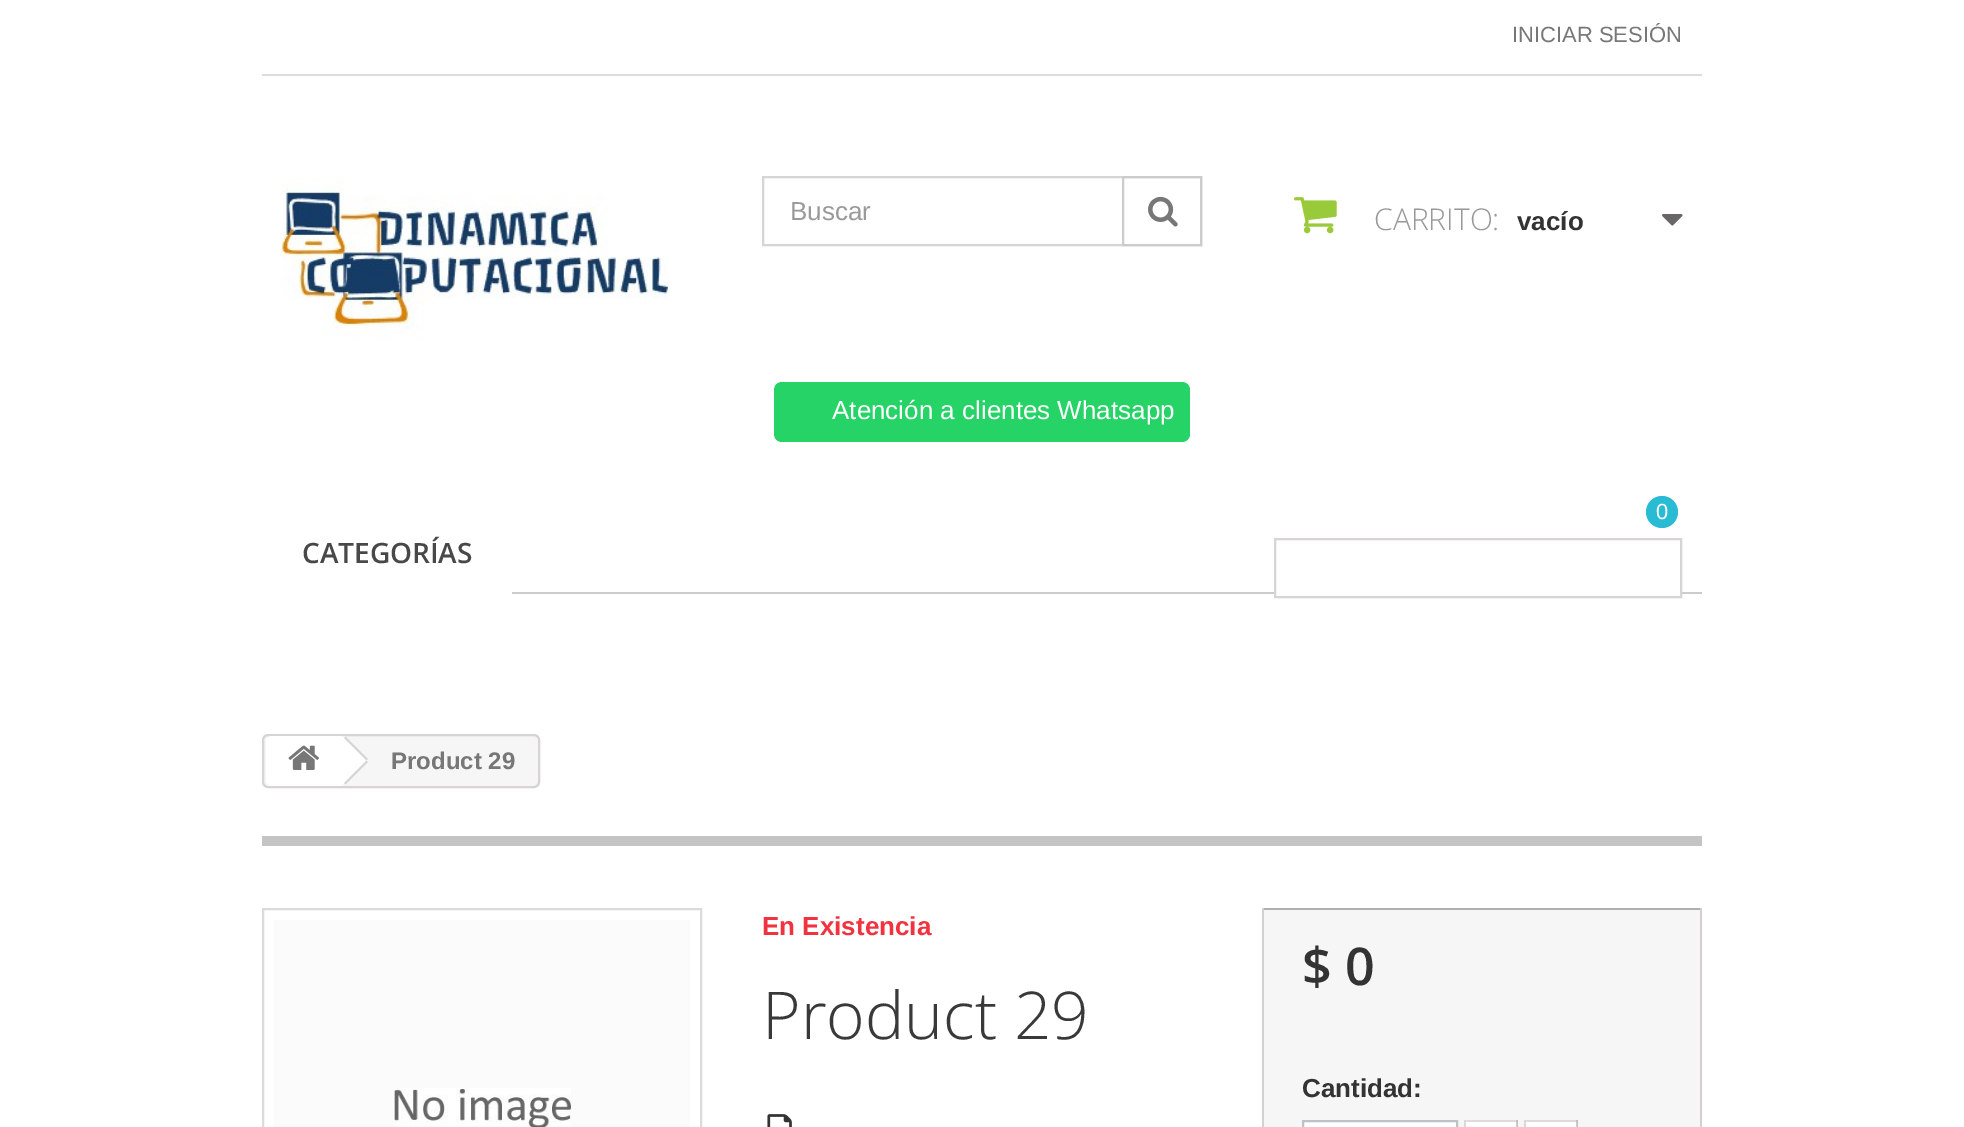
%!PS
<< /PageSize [1964 1127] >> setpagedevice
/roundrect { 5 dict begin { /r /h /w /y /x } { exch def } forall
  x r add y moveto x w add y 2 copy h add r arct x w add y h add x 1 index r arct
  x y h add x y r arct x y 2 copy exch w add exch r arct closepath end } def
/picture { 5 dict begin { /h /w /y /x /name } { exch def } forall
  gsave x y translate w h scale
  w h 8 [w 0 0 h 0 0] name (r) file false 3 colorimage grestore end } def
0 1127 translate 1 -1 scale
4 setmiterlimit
1 setgray
0 0 1964 1127 rectfill
0.867 setgray
262 74 1440 2 rectfill
/LiberationSans-Regular [22 0 0 -22 0 0] selectfont
0.467 setgray
1512 42 moveto (INICIAR SESIÓN) show
(img1.rgb) 281 177 388 162 picture
0.839 0.831 0.831 setrgbcolor
2 setlinewidth
763 177 438 68 rectstroke
/LiberationSans-Regular [26 0 0 -26 0 0] selectfont
0.6 setgray
790 220 moveto (Buscar) show
0.8 setgray
1123 177 78 68 rectstroke
(img2.rgb) 1148 196 30 31 picture
(img3.rgb) 1294 197 43 37 picture
/OpenSans-Light [30 0 0 -30 0 0] selectfont
0.6 setgray
1374 230 moveto (CARRITO:) show
/LiberationSans-Bold [26 0 0 -26 0 0] selectfont
0.2 setgray
1517 230 moveto (vacío) show
(img4.rgb) 1662 214 21 12 picture
0.145 0.827 0.4 setrgbcolor
774 382 416 60 8 roundrect fill
/LiberationSans-Regular [26 0 0 -26 0 0] selectfont
1 setgray
832 419 moveto (Atención a clientes Whatsapp) show
0.161 0.733 0.831 setrgbcolor
newpath 1662 512 16 0 360 arc closepath fill
/LiberationSans-Regular [22 0 0 -22 0 0] selectfont
1 setgray
1656 519 moveto (0) show
0.8 setgray
512 592 1190 2 rectfill
/OpenSans-SemiBold [28 0 0 -28 0 0] selectfont
0.282 setgray
302 563 moveto (CATEGORÍAS) show
1 setgray
1276 592 404 2 rectfill
0.839 0.831 0.831 setrgbcolor
1275 539 406 58 rectstroke
0.965 setgray
263 735 276 52 5 roundrect gsave fill grestore
0.839 0.831 0.831 setrgbcolor
stroke
1 setgray
newpath 272 736 moveto 342 736 lineto 342 786 lineto 272 786 lineto 268.5 786 266 783.5 266 780 curveto 266 742 lineto 266 738.5 268.5 736 272 736 curveto closepath fill
(img5.rgb) 288 745 31 25 picture
newpath 347 738 moveto 367 758 lineto 368 759 368 762 367 763 curveto 347 783 lineto 345 785 343 785 341 783 curveto 321 763 lineto 320 762 320 759 321 758 curveto 341 738 lineto 343 736 345 736 347 738 curveto closepath fill
0.839 0.831 0.831 setrgbcolor
newpath 345.5 736.5 moveto 368 759 lineto 366.5 760.5 lineto 344 738 lineto closepath fill
newpath 366.5 760.5 moveto 368 762 lineto 345.5 784.5 lineto 344 783 lineto closepath fill
/LiberationSans-Bold [24 0 0 -24 0 0] selectfont
0.467 setgray
391 769 moveto (Product 29) show
0.769 setgray
262 836 1440 10 rectfill
0.859 setgray
263 909 438 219 rectstroke
0.984 setgray
274 920 416 207 rectfill
(img6.rgb) 394 1088 177 39 picture
/LiberationSans-Bold [26 0 0 -26 0 0] selectfont
0.945 0.2 0.251 setrgbcolor
762 935 moveto (En Existencia) show
/OpenSans-Light [66 0 0 -66 0 0] selectfont
0.227 0.224 0.224 setrgbcolor
762 1039 moveto (Product 29) show
(img7.rgb) 767 1114 25 13 picture
0.965 setgray
1264 910 436 217 rectfill
0.69 0.686 0.686 setrgbcolor
1262 908 440 2 rectfill
0.824 0.816 0.816 setrgbcolor
1700 908 2 219 rectfill
1262 908 2 219 rectfill
/OpenSans-SemiBold [52 0 0 -52 0 0] selectfont
0.2 setgray
1302 985 moveto ($ 0) show
/LiberationSans-Bold [26 0 0 -26 0 0] selectfont
1302 1097 moveto (Cantidad:) show
1 setgray
newpath 1303 1121 moveto 1457 1121 lineto 1457 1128 lineto 1303 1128 lineto closepath gsave fill grestore
0.741 0.761 0.788 setrgbcolor
stroke
1 setgray
1464 1124 54 3 rectfill
0.871 0.863 0.863 setrgbcolor
1464 1120 54 2 rectfill
0.757 0.749 0.749 setrgbcolor
1516 1120 2 7 rectfill
0.855 0.847 0.847 setrgbcolor
1464 1120 2 7 rectfill
1 setgray
1467 1123 48 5 rectstroke
1524 1124 54 3 rectfill
0.871 0.863 0.863 setrgbcolor
1524 1120 54 2 rectfill
0.757 0.749 0.749 setrgbcolor
1576 1120 2 7 rectfill
0.855 0.847 0.847 setrgbcolor
1524 1120 2 7 rectfill
1 setgray
1527 1123 48 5 rectstroke
showpage
